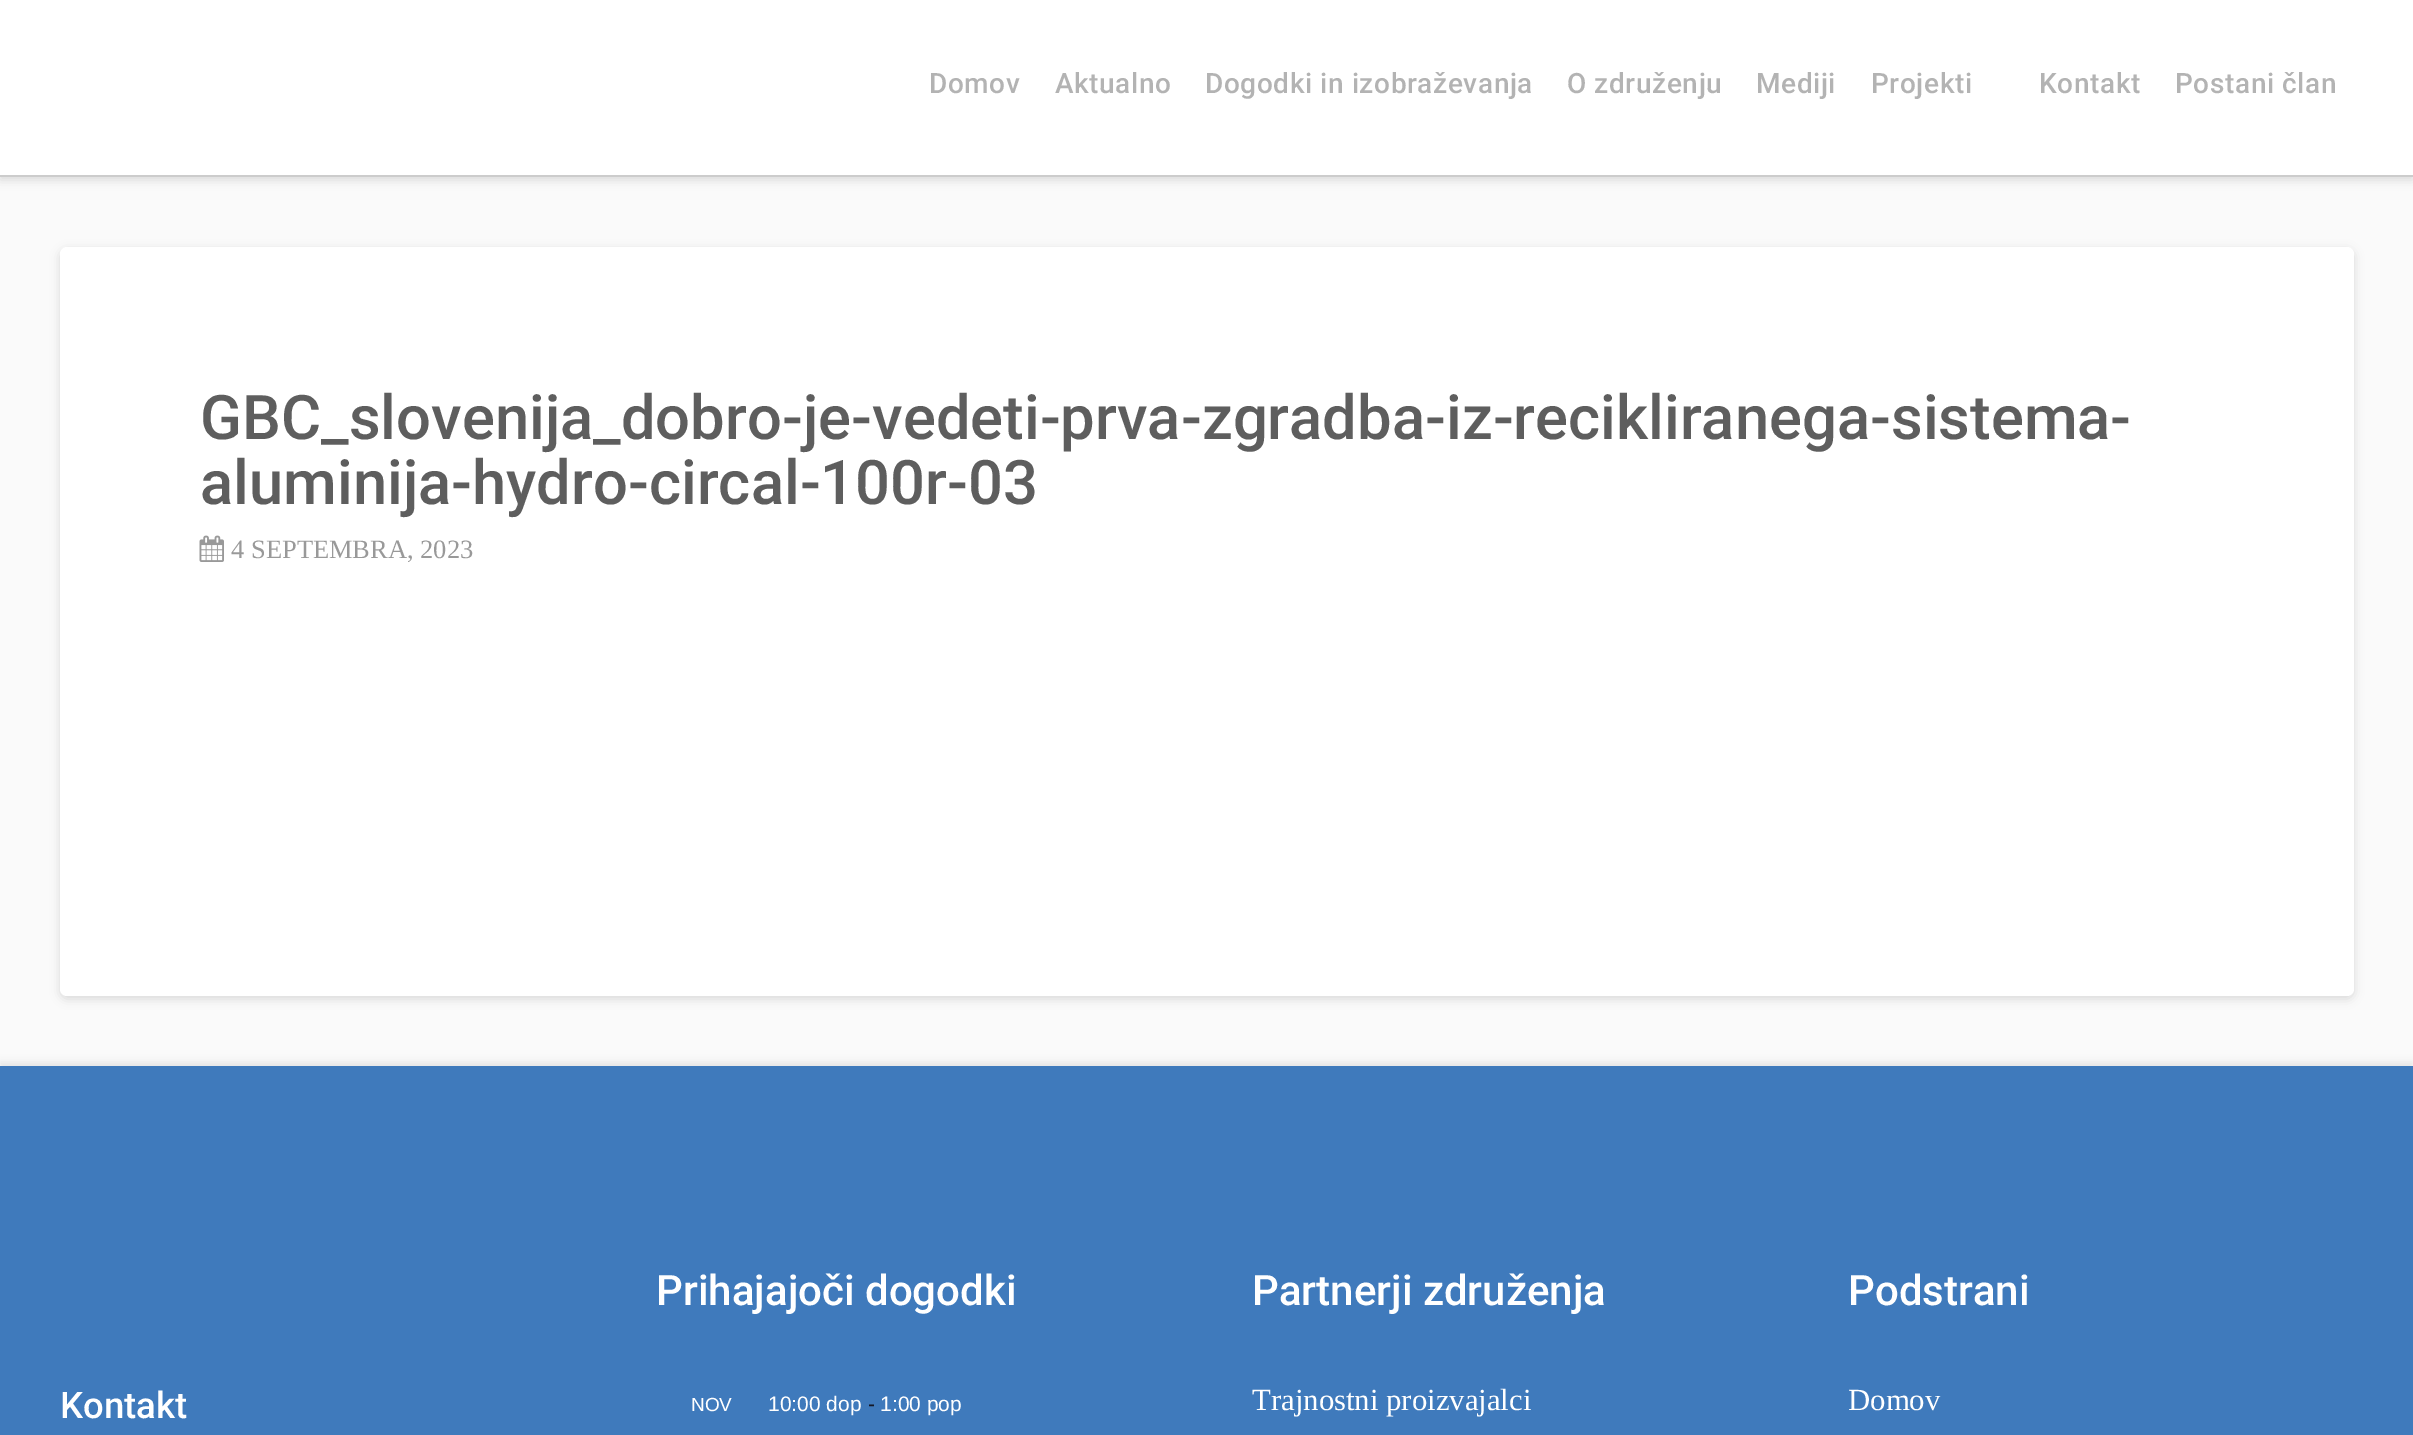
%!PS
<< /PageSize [2413 1435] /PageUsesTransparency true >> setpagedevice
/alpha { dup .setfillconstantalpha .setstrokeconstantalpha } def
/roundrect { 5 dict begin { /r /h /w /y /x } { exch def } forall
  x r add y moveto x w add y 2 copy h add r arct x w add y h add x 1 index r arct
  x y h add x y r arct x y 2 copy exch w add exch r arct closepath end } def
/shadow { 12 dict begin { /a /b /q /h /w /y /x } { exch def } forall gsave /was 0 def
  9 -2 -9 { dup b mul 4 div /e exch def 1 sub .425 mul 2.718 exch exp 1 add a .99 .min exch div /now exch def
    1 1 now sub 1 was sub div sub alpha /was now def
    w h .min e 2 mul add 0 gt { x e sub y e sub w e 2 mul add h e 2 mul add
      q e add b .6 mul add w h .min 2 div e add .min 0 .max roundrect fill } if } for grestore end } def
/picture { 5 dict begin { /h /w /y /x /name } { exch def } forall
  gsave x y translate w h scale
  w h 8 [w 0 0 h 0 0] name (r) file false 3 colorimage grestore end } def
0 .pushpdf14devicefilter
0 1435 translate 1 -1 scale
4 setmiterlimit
0.98 setgray
0 0 2413 1435 rectfill
0 setgray
0 4 2413 176 0 5 0.13 shadow
1 setgray
0 0 2413 175 rectfill
0.8 setgray
0 175 2413 2 rectfill
/Roboto-Medium [28 0 0 -28 0 0] selectfont
0.702 setgray
929 93 moveto 0.6 0 (Domov) ashow
1055 93 moveto 0.6 0 (Aktualno) ashow
1205 93 moveto 0.6 0 (Dogodki in izobraževanja) ashow
1567 93 moveto 0.6 0 (O združenju) ashow
1756 93 moveto 0.6 0 (Mediji) ashow
1871 93 moveto 0.6 0 (Projekti) ashow
2039 93 moveto 0.6 0 (Kontakt) ashow
2175 93 moveto 0.6 0 (Postani član) ashow
0 setgray
60 250 2294 749 7 5 0.13 shadow
1 setgray
60 247 2294 749 7 roundrect fill
/Roboto-Medium [61.6 0 0 -61.6 0 0] selectfont
0.369 setgray
200 439 moveto (GBC_slovenija_dobro-je-vedeti-prva-zgradba-iz-recikliranega-sistema-) show
200 504 moveto (aluminija-hydro-circal-100r-03) show
(img1.rgb) 199 535 25 27 picture
/LiberationSerif-Regular [26.5 0 0 -26.5 0 0] selectfont
0.6 setgray
231 558 moveto (4 SEPTEMBRA, 2023) show
0 setgray
0 1062 2413 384 0 3.5 0.07 shadow
0.247 0.478 0.737 setrgbcolor
0 1066 2413 369 rectfill
/Roboto-Medium [36.5 0 0 -36.5 0 0] selectfont
1 setgray
60 1418 moveto (Kontakt) show
/Roboto-Medium [42 0 0 -42 0 0] selectfont
656 1305 moveto (Prihajajoči dogodki) show
/LiberationSans-Regular [19 0 0 -19 0 0] selectfont
691 1411 moveto (NOV) show
/LiberationSans-Regular [21 0 0 -21 0 0] selectfont
768 1411 moveto (10:00 dop) show
0.078 0.094 0.153 setrgbcolor
868 1411 moveto (-) show
1 setgray
880 1411 moveto (1:00 pop) show
/Roboto-Medium [42 0 0 -42 0 0] selectfont
1252 1305 moveto (Partnerji združenja) show
/LiberationSerif-Regular [30.75 0 0 -30.75 0 0] selectfont
1252 1410 moveto (Trajnostni proizvajalci) show
/Roboto-Medium [42 0 0 -42 0 0] selectfont
1848 1305 moveto (Podstrani) show
/LiberationSerif-Regular [30.75 0 0 -30.75 0 0] selectfont
1848 1410 moveto (Domov) show
.poppdf14devicefilter showpage
